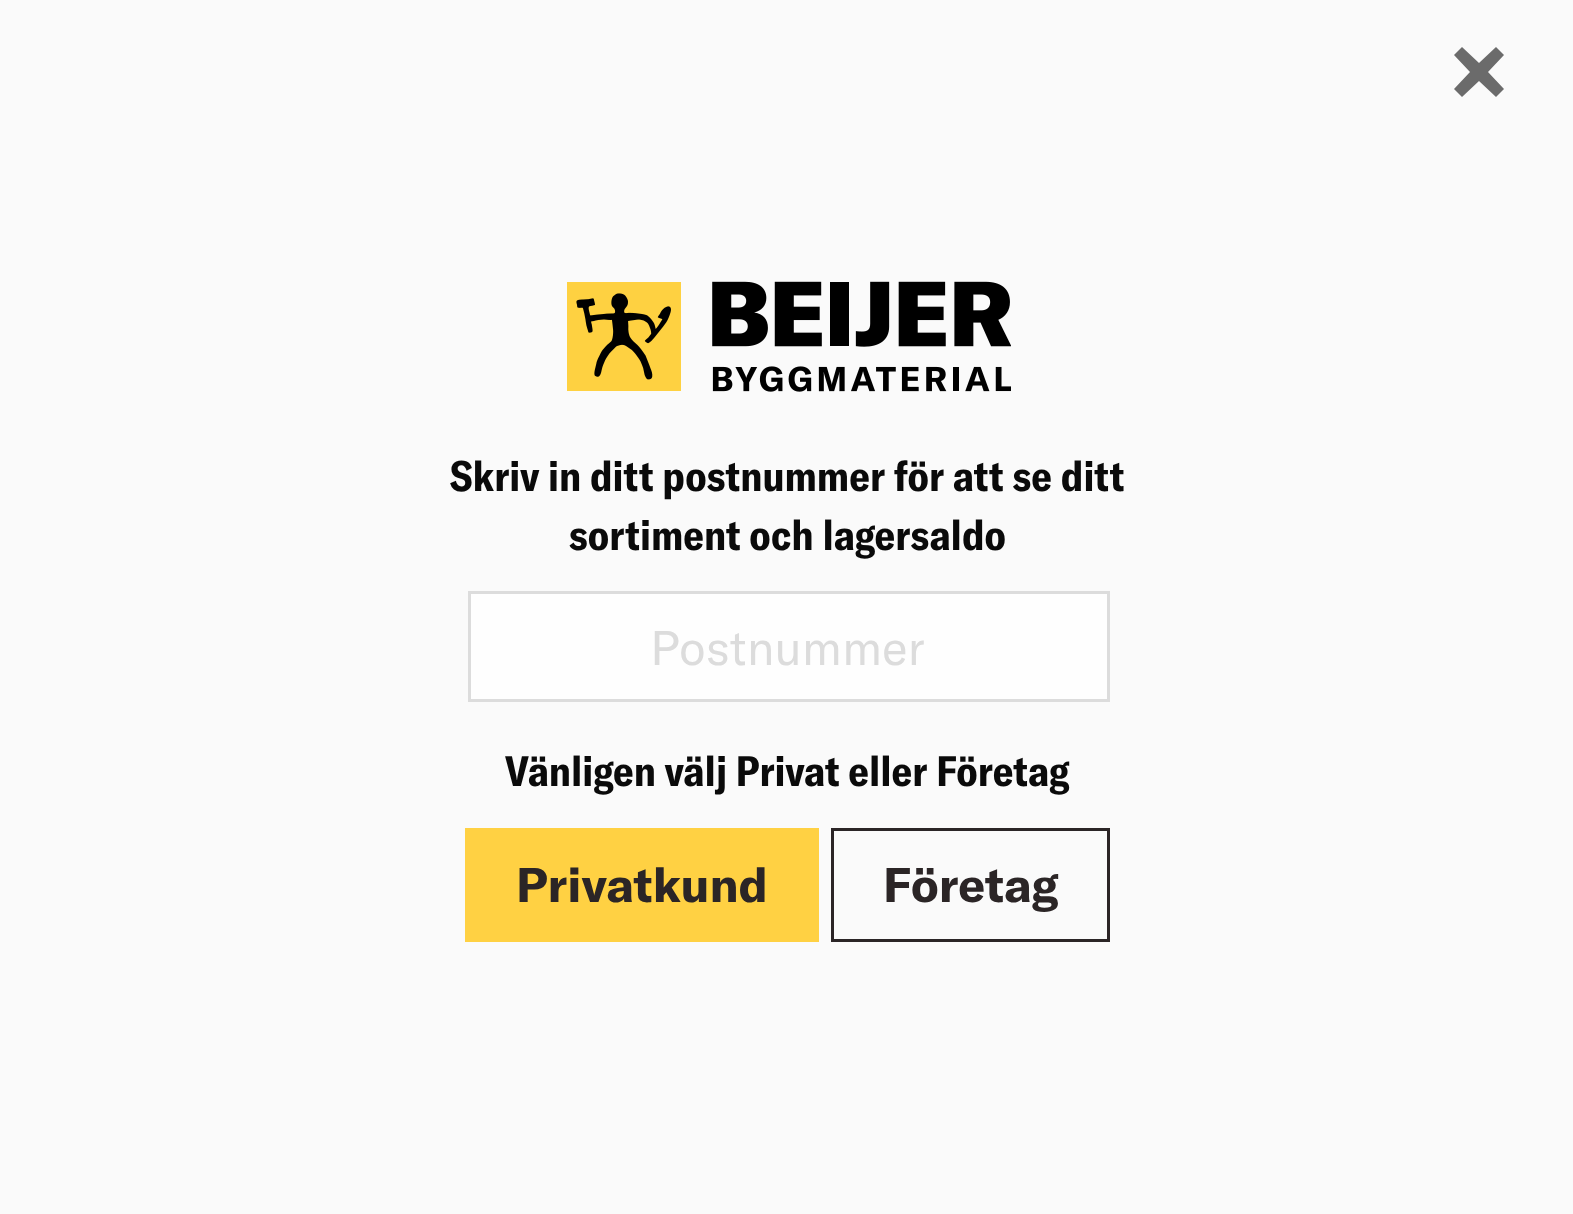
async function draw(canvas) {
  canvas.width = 1573
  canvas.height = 1214
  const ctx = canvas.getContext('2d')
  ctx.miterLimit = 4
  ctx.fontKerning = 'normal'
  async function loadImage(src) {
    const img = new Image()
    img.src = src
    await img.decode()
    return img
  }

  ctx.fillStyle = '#fafafa'
  ctx.fillRect(0, 0, 1573, 1214)
  ctx.fillStyle = '#6b6b6b'
  ctx.beginPath()
  ctx.moveTo(1504, 89)
  ctx.lineTo(1496, 97)
  ctx.lineTo(1479, 81)
  ctx.lineTo(1462, 97)
  ctx.lineTo(1454, 89)
  ctx.lineTo(1470, 72)
  ctx.lineTo(1454, 55)
  ctx.lineTo(1462, 47)
  ctx.lineTo(1479, 63)
  ctx.lineTo(1496, 47)
  ctx.lineTo(1504, 55)
  ctx.lineTo(1488, 72)
  ctx.closePath()
  ctx.fill()
  ctx.drawImage(await loadImage('image0.png'), 567, 281, 444, 111)
  ctx.font = 'bold 42px GT America'
  ctx.fillStyle = '#0a0a0a'
  ctx.fillText('Skriv in ditt postnummer för att se ditt', 450, 491)
  ctx.fillText('sortiment och lagersaldo', 569, 550)
  ctx.fillStyle = '#fefefe'
  ctx.beginPath()
  ctx.rect(469.5, 592.5, 639, 108)
  ctx.fill()
  ctx.strokeStyle = '#dcdcdc'
  ctx.lineWidth = 3
  ctx.stroke()
  ctx.font = '48px GT America'
  ctx.fillStyle = '#dcdcdc'
  ctx.fillText('Postnummer', 650, 665)
  ctx.font = 'bold 42px GT America'
  ctx.fillStyle = '#0a0a0a'
  ctx.fillText('Vänligen välj Privat eller Företag', 505, 786)
  ctx.fillStyle = '#ffd143'
  ctx.fillRect(465, 828, 354, 114)
  ctx.font = 'bold 48px "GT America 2"'
  ctx.fillStyle = '#2b2526'
  ctx.fillText('Privatkund', 516, 902)
  ctx.strokeStyle = '#2b2526'
  ctx.strokeRect(832.5, 829.5, 276, 111)
  ctx.fillText('Företag', 883, 902)
}

draw(document.querySelector('canvas'))
